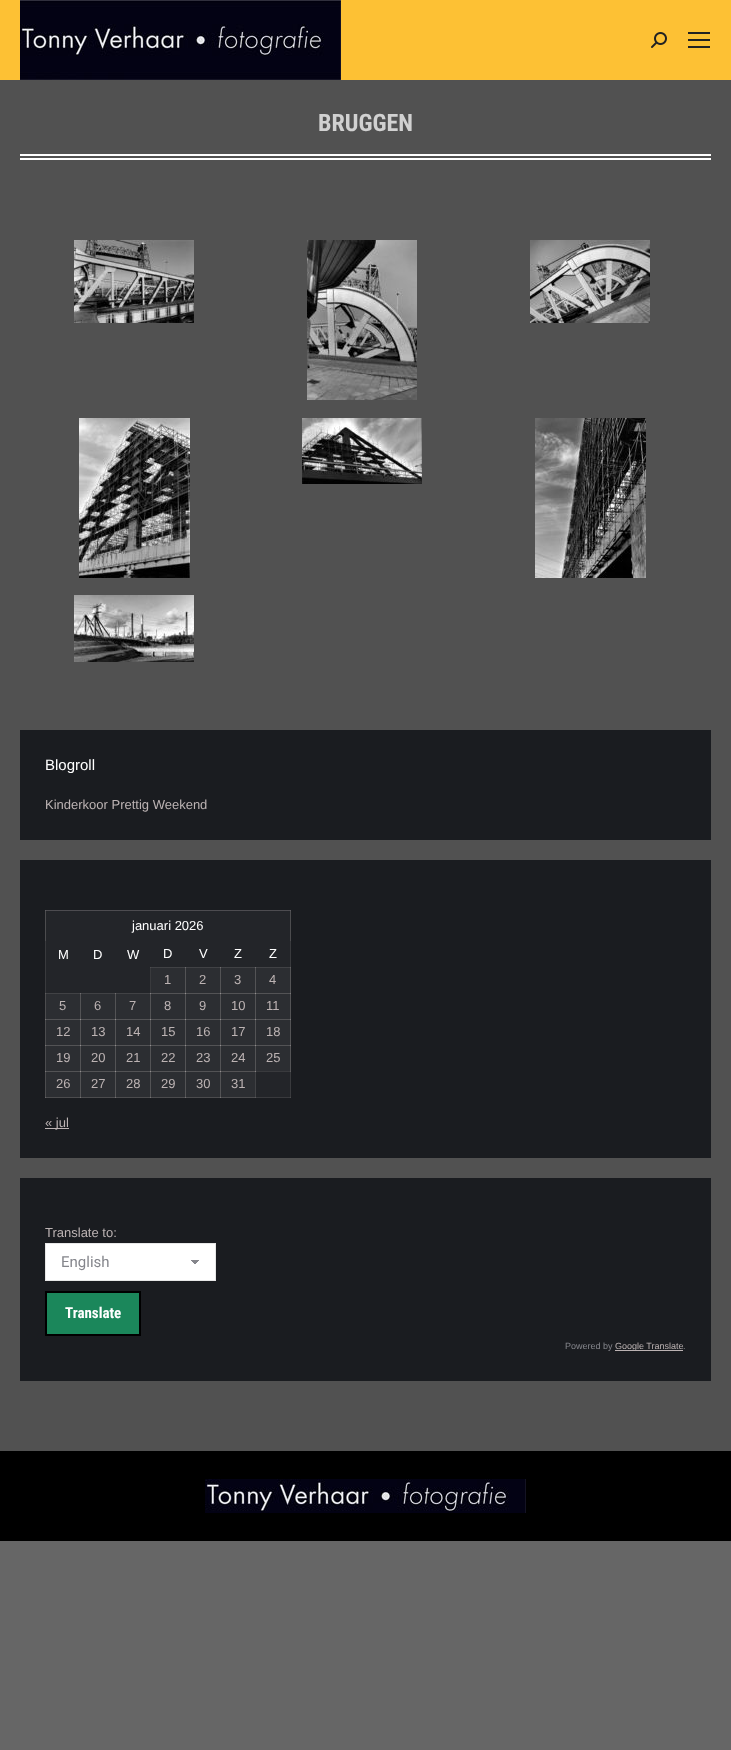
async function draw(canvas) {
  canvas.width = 731
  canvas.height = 1750
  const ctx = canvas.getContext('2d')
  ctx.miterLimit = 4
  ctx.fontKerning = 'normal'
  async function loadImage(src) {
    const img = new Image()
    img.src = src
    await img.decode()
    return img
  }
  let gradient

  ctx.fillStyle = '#666'
  ctx.fillRect(0, 0, 731, 1750)
  ctx.fillStyle = '#515151'
  ctx.fillRect(0, 80, 731, 1371)
  ctx.fillStyle = '#fdc134'
  ctx.fillRect(0, 0, 731, 80)
  ctx.drawImage(await loadImage('image0.png'), 20, 0, 321, 80)
  ctx.drawImage(await loadImage('image1.png'), 651, 32, 16, 16)
  ctx.fillStyle = '#222'
  ctx.fillRect(688, 32, 22, 2)
  ctx.fillRect(688, 39, 22, 2)
  ctx.fillRect(688, 46, 22, 2)
  ctx.font = 'bold 24px Roboto Condensed'
  ctx.fillStyle = '#d1d1d1'
  ctx.fillText('BRUGGEN', 318, 131)
  ctx.fillStyle = '#fff'
  ctx.fillRect(20, 154, 691, 2)
  ctx.fillRect(20, 158, 691, 2)
  ctx.drawImage(await loadImage('image2.png'), 74, 240, 120, 83)
  ctx.drawImage(await loadImage('image3.png'), 307, 240, 110, 160)
  ctx.drawImage(await loadImage('image4.png'), 530, 240, 120, 83)
  ctx.drawImage(await loadImage('image5.png'), 79, 418, 111, 160)
  ctx.drawImage(await loadImage('image6.png'), 302, 418, 120, 66)
  ctx.drawImage(await loadImage('image7.png'), 535, 418, 111, 160)
  ctx.drawImage(await loadImage('image8.png'), 74, 595, 120, 67)
  ctx.fillStyle = '#1a1c20'
  ctx.fillRect(20, 730, 691, 110)
  ctx.font = '15px Liberation Sans'
  ctx.fillStyle = '#fff'
  ctx.fillText('Blogroll', 45, 770)
  ctx.font = '13px Liberation Sans'
  ctx.fillStyle = '#bcb3b3'
  ctx.fillText('Kinderkoor Prettig Weekend', 45, 809)
  ctx.fillStyle = '#1a1c20'
  ctx.fillRect(20, 860, 691, 298)
  ctx.fillStyle = '#232529'
  ctx.fillRect(45, 911, 246, 187)
  ctx.fillStyle = '#bcb3b326'
  ctx.beginPath()
  ctx.moveTo(291, 910)
  ctx.lineTo(291, 941)
  ctx.lineTo(290, 941)
  ctx.lineTo(290, 911)
  ctx.closePath()
  ctx.fill()
  ctx.beginPath()
  ctx.moveTo(45, 941)
  ctx.lineTo(45, 910)
  ctx.lineTo(46, 911)
  ctx.lineTo(46, 941)
  ctx.closePath()
  ctx.fill()
  ctx.fillStyle = '#4d4c50'
  ctx.fillRect(45, 910, 246, 1)
  ctx.fillStyle = '#2c2e32'
  ctx.fillRect(151, 967, 140, 26)
  ctx.fillRect(46, 993, 245, 26)
  ctx.fillRect(46, 1019, 245, 26)
  ctx.fillRect(46, 1045, 245, 26)
  ctx.fillStyle = '#bcb3b326'
  ctx.fillRect(290, 910, 1, 188)
  ctx.fillRect(45, 1097, 246, 1)
  ctx.fillRect(45, 910, 1, 188)
  ctx.fillStyle = '#fff'
  ctx.fillText('januari 2026', 132, 930)
  ctx.fillText('M', 58, 959)
  ctx.fillText('D', 93, 959)
  ctx.fillText('W', 127, 959)
  ctx.fillText('D', 163, 958)
  ctx.fillText('V', 199, 958)
  ctx.fillText('Z', 234, 958)
  ctx.fillText('Z', 269, 958)
  ctx.fillStyle = '#bcb3b326'
  ctx.fillRect(255, 967, 36, 1)
  ctx.fillRect(255, 993, 36, 1)
  ctx.fillRect(255, 1019, 36, 1)
  ctx.fillRect(255, 1045, 36, 1)
  ctx.fillRect(290, 1045, 1, 27)
  ctx.fillRect(290, 1019, 1, 27)
  ctx.fillRect(290, 993, 1, 27)
  ctx.fillRect(290, 967, 1, 27)
  ctx.fillStyle = '#2c2e32'
  ctx.fillRect(46, 1071, 175, 26)
  ctx.fillStyle = '#424245'
  ctx.fillRect(220, 1071, 36, 1)
  ctx.fillStyle = '#2c2e32'
  ctx.fillRect(221, 1072, 35, 25)
  ctx.fillStyle = '#bcb3b326'
  ctx.fillRect(255, 1071, 1, 27)
  ctx.fillRect(255, 1071, 36, 1)
  ctx.fillRect(255, 1045, 1, 27)
  ctx.fillRect(220, 1045, 36, 1)
  ctx.fillRect(255, 1045, 1, 27)
  ctx.fillRect(255, 1045, 36, 1)
  ctx.fillRect(255, 1019, 1, 27)
  ctx.fillRect(220, 1019, 36, 1)
  ctx.fillRect(255, 1019, 1, 27)
  ctx.fillRect(255, 1019, 36, 1)
  ctx.fillRect(255, 993, 1, 27)
  ctx.fillRect(220, 993, 36, 1)
  ctx.fillRect(255, 993, 1, 27)
  ctx.fillRect(255, 993, 36, 1)
  ctx.fillRect(255, 967, 1, 27)
  ctx.fillRect(220, 967, 36, 1)
  ctx.fillRect(255, 967, 1, 27)
  ctx.fillRect(220, 1097, 36, 1)
  ctx.fillRect(220, 1071, 1, 27)
  ctx.fillRect(185, 1071, 36, 1)
  ctx.fillRect(220, 1071, 1, 27)
  ctx.fillRect(220, 1071, 36, 1)
  ctx.fillRect(220, 1045, 1, 27)
  ctx.fillRect(185, 1045, 36, 1)
  ctx.fillRect(220, 1045, 1, 27)
  ctx.fillRect(220, 1045, 36, 1)
  ctx.fillRect(220, 1019, 1, 27)
  ctx.fillRect(185, 1019, 36, 1)
  ctx.fillRect(220, 1019, 1, 27)
  ctx.fillRect(220, 1019, 36, 1)
  ctx.fillRect(220, 993, 1, 27)
  ctx.fillRect(185, 993, 36, 1)
  ctx.fillRect(220, 993, 1, 27)
  ctx.fillRect(220, 993, 36, 1)
  ctx.fillRect(220, 967, 1, 27)
  ctx.fillRect(185, 967, 36, 1)
  ctx.fillRect(220, 967, 1, 27)
  ctx.fillRect(185, 1097, 36, 1)
  ctx.fillRect(185, 1071, 1, 27)
  ctx.fillRect(150, 1071, 36, 1)
  ctx.fillRect(185, 1071, 1, 27)
  ctx.fillRect(185, 1071, 36, 1)
  ctx.fillRect(185, 1045, 1, 27)
  ctx.fillRect(150, 1045, 36, 1)
  ctx.fillRect(185, 1045, 1, 27)
  ctx.fillRect(185, 1045, 36, 1)
  ctx.fillRect(185, 1019, 1, 27)
  ctx.fillRect(150, 1019, 36, 1)
  ctx.fillRect(185, 1019, 1, 27)
  ctx.fillRect(185, 1019, 36, 1)
  ctx.fillRect(185, 993, 1, 27)
  ctx.fillRect(150, 993, 36, 1)
  ctx.fillRect(185, 993, 1, 27)
  ctx.fillRect(185, 993, 36, 1)
  ctx.fillRect(185, 967, 1, 27)
  ctx.fillRect(150, 967, 36, 1)
  ctx.fillRect(185, 967, 1, 27)
  ctx.fillRect(150, 1097, 36, 1)
  ctx.fillRect(150, 1071, 1, 27)
  ctx.fillRect(115, 1071, 36, 1)
  ctx.fillRect(150, 1071, 1, 27)
  ctx.fillRect(150, 1071, 36, 1)
  ctx.fillRect(150, 1045, 1, 27)
  ctx.fillRect(115, 1045, 36, 1)
  ctx.fillRect(150, 1045, 1, 27)
  ctx.fillRect(150, 1045, 36, 1)
  ctx.fillRect(150, 1019, 1, 27)
  ctx.fillRect(115, 1019, 36, 1)
  ctx.fillRect(150, 1019, 1, 27)
  ctx.fillRect(150, 1019, 36, 1)
  ctx.fillRect(150, 993, 1, 27)
  ctx.fillRect(115, 993, 36, 1)
  ctx.fillRect(150, 993, 1, 27)
  ctx.fillRect(150, 993, 36, 1)
  ctx.fillRect(150, 967, 1, 27)
  ctx.fillStyle = '#bcb3b3'
  ctx.fillText('1', 164, 984)
  ctx.fillText('2', 199, 984)
  ctx.fillText('3', 234, 984)
  ctx.fillText('4', 269, 984)
  ctx.fillStyle = '#bcb3b326'
  ctx.fillRect(115, 1097, 36, 1)
  ctx.fillRect(115, 1071, 1, 27)
  ctx.fillRect(80, 1071, 36, 1)
  ctx.fillRect(115, 1071, 1, 27)
  ctx.fillRect(115, 1071, 36, 1)
  ctx.fillRect(115, 1045, 1, 27)
  ctx.fillRect(80, 1045, 36, 1)
  ctx.fillRect(115, 1045, 1, 27)
  ctx.fillRect(115, 1045, 36, 1)
  ctx.fillRect(115, 1019, 1, 27)
  ctx.fillRect(80, 1019, 36, 1)
  ctx.fillRect(115, 1019, 1, 27)
  ctx.fillRect(115, 1019, 36, 1)
  ctx.fillRect(115, 993, 1, 27)
  ctx.fillRect(80, 993, 36, 1)
  ctx.fillRect(115, 993, 1, 27)
  ctx.fillRect(80, 1097, 36, 1)
  ctx.fillRect(80, 1071, 1, 27)
  ctx.fillRect(45, 1071, 36, 1)
  ctx.fillRect(80, 1071, 1, 27)
  ctx.fillRect(80, 1071, 36, 1)
  ctx.fillRect(80, 1045, 1, 27)
  ctx.fillRect(45, 1045, 36, 1)
  ctx.fillRect(80, 1045, 1, 27)
  ctx.fillRect(80, 1045, 36, 1)
  ctx.fillRect(80, 1019, 1, 27)
  ctx.fillRect(45, 1019, 36, 1)
  ctx.fillRect(80, 1019, 1, 27)
  ctx.fillRect(80, 1019, 36, 1)
  ctx.fillRect(80, 993, 1, 27)
  ctx.fillRect(45, 993, 36, 1)
  ctx.fillRect(80, 993, 1, 27)
  ctx.fillRect(45, 1097, 36, 1)
  ctx.fillRect(45, 1071, 1, 27)
  ctx.fillRect(45, 1071, 36, 1)
  ctx.fillRect(45, 1045, 1, 27)
  ctx.fillRect(45, 1045, 36, 1)
  ctx.fillRect(45, 1019, 1, 27)
  ctx.fillRect(45, 1019, 36, 1)
  ctx.fillRect(45, 993, 1, 27)
  ctx.fillStyle = '#bcb3b3'
  ctx.fillText('5', 59, 1010)
  ctx.fillText('6', 94, 1010)
  ctx.fillText('7', 129, 1010)
  ctx.fillText('8', 164, 1010)
  ctx.fillText('9', 199, 1010)
  ctx.fillText('10', 231, 1010)
  ctx.fillText('11', 266, 1010)
  ctx.fillText('12', 56, 1036)
  ctx.fillText('13', 91, 1036)
  ctx.fillText('14', 126, 1036)
  ctx.fillText('15', 161, 1036)
  ctx.fillText('16', 196, 1036)
  ctx.fillText('17', 231, 1036)
  ctx.fillText('18', 266, 1036)
  ctx.fillText('19', 56, 1062)
  ctx.fillText('20', 91, 1062)
  ctx.fillText('21', 126, 1062)
  ctx.fillText('22', 161, 1062)
  ctx.fillText('23', 196, 1062)
  ctx.fillText('24', 231, 1062)
  ctx.fillText('25', 266, 1062)
  ctx.fillText('26', 56, 1088)
  ctx.fillText('27', 91, 1088)
  ctx.fillText('28', 126, 1088)
  ctx.fillText('29', 161, 1088)
  ctx.fillText('30', 196, 1088)
  ctx.fillText('31', 231, 1088)
  ctx.fillRect(45, 1128, 24, 1)
  ctx.fillText('« jul', 45, 1127)
  ctx.fillStyle = '#1a1c20'
  ctx.fillRect(20, 1178, 691, 203)
  ctx.fillStyle = '#bcb3b3'
  ctx.fillText('Translate to:', 45, 1237)
  ctx.fillStyle = '#fff'
  ctx.fillRect(46, 1244, 169, 36)
  gradient = ctx.createLinearGradient(195, 1260, 200, 1265)
  gradient.addColorStop(0.5, '#85868c')
  gradient.addColorStop(0.5, '#fff')
  ctx.fillStyle = gradient
  ctx.fillRect(195, 1260, 5, 4)
  gradient = ctx.createLinearGradient(190, 1265, 195, 1260)
  gradient.addColorStop(0.5, '#fff')
  gradient.addColorStop(0.5, '#85868c')
  ctx.fillStyle = gradient
  ctx.fillRect(190, 1260, 5, 4)
  ctx.strokeStyle = '#e7e7e7'
  ctx.strokeRect(45.5, 1243.5, 170, 37)
  ctx.font = '15px Roboto'
  ctx.fillStyle = '#85868c'
  ctx.fillText('English', 61, 1267)
  ctx.fillStyle = '#1b875b'
  ctx.beginPath()
  ctx.rect(46, 1292, 94, 43)
  ctx.fill()
  ctx.strokeStyle = '#000'
  ctx.lineWidth = 2
  ctx.stroke()
  ctx.font = 'bold 15px Roboto Condensed'
  ctx.fillStyle = '#fff'
  ctx.fillText('Translate', 65, 1318)
  ctx.font = '9px Liberation Sans'
  ctx.fillStyle = '#85868c'
  ctx.fillText('Powered by', 565, 1349)
  ctx.fillStyle = '#bcb3b3'
  ctx.fillRect(615, 1350, 68, 1)
  ctx.fillText('Google Translate', 615, 1349)
  ctx.fillStyle = '#85868c'
  ctx.fillText('.', 683, 1349)
  ctx.fillStyle = '#000'
  ctx.fillRect(0, 1451, 731, 90)
  ctx.drawImage(await loadImage('image9.png'), 205, 1479, 321, 34)
}

draw(document.querySelector('canvas'))
